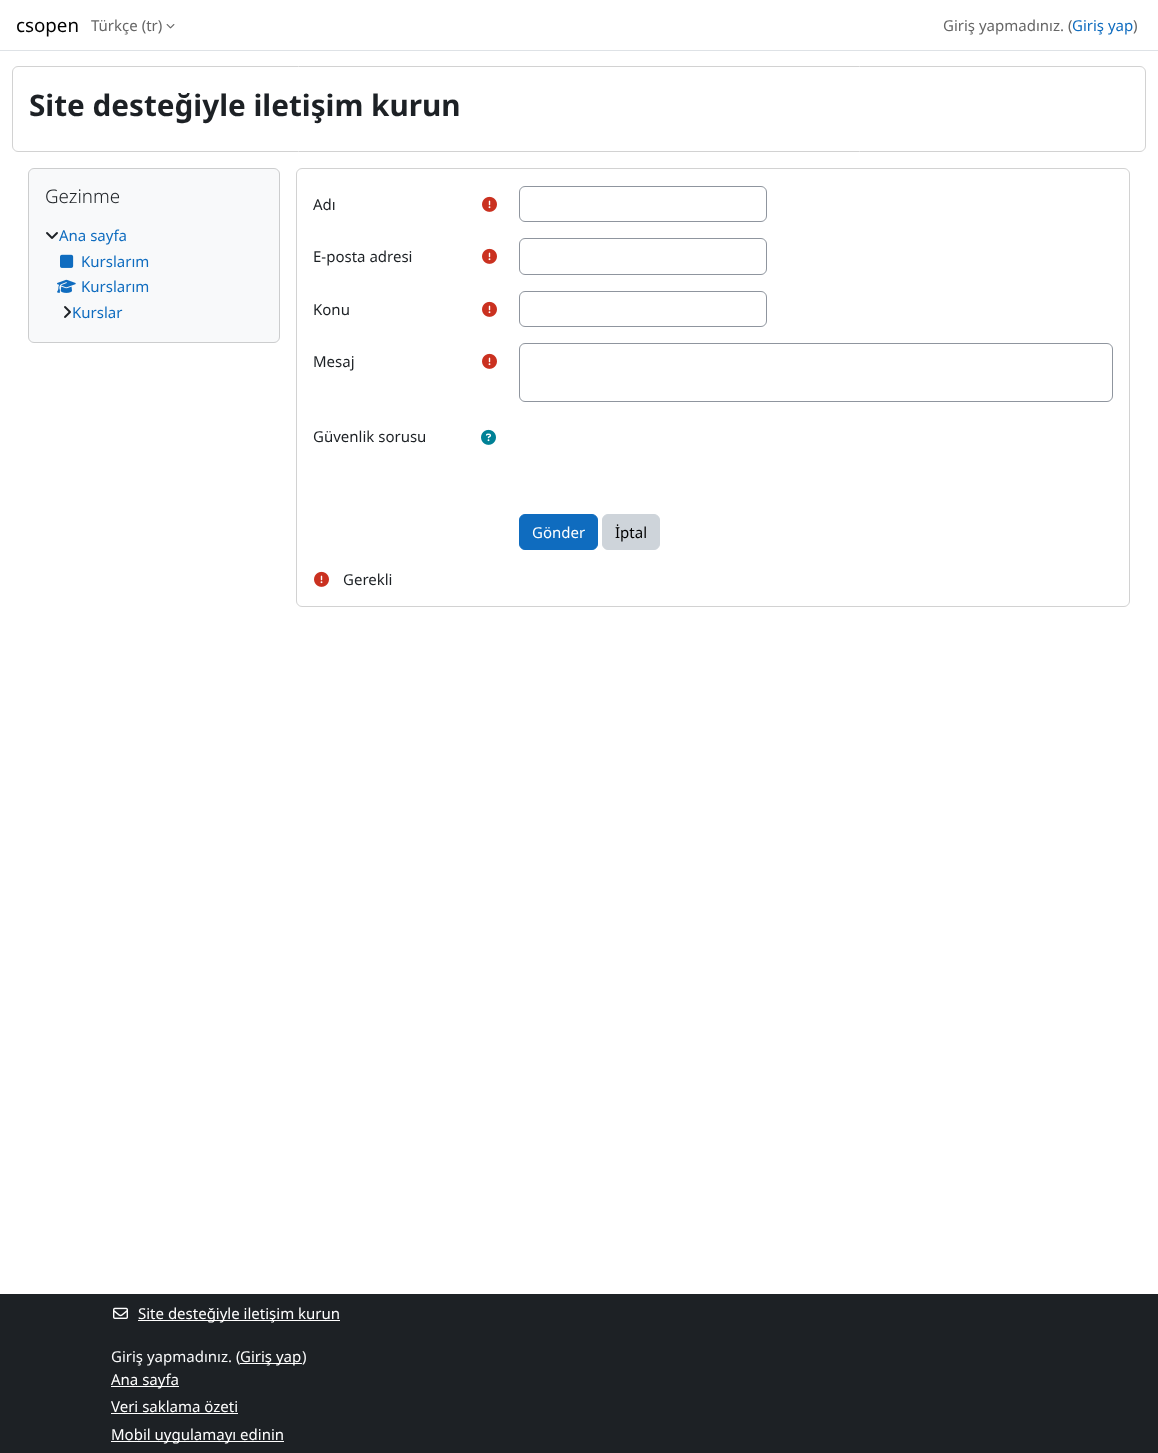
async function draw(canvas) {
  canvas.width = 1158
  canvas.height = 1453
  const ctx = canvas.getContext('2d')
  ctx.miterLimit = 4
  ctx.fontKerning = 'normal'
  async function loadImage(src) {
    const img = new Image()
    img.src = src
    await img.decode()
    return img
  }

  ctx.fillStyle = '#fff'
  ctx.fillRect(0, 0, 1158, 1453)
  ctx.fillStyle = '#dee2e6'
  ctx.fillRect(0, 50, 1158, 1)
  ctx.font = '18.75px Noto Sans'
  ctx.fillStyle = '#000'
  ctx.fillText('csopen', 16, 32)
  ctx.font = '15px Noto Sans'
  ctx.fillStyle = '#666'
  ctx.fillText('Türkçe (tr)', 91, 31)
  ctx.drawImage(await loadImage('image0.png'), 166, 24, 9, 5)
  ctx.fillText('Giriş yapmadınız. (', 943, 31)
  ctx.fillStyle = '#0f6cbf'
  ctx.fillText('Giriş yap', 1072, 31)
  ctx.fillStyle = '#666'
  ctx.fillText(')', 1133, 31)
  ctx.beginPath()
  ctx.roundRect(12.5, 66.5, 1133, 85, 5.5)
  ctx.strokeStyle = '#d2d2d2'
  ctx.stroke()
  ctx.font = 'bold 29.7px Noto Sans'
  ctx.fillStyle = '#1d2125'
  ctx.fillText('Site desteğiyle iletişim kurun', 29, 116)
  ctx.fillStyle = '#f8f9fa'
  ctx.beginPath()
  ctx.roundRect(28.5, 168.5, 251, 174, 5.5)
  ctx.fill()
  ctx.strokeStyle = '#cccdce'
  ctx.stroke()
  ctx.font = '300 18.75px Noto Sans'
  ctx.fillStyle = '#1d2125'
  ctx.fillText('Gezinme', 45, 203)
  ctx.drawImage(await loadImage('image1.png'), 46, 232, 12, 7)
  ctx.font = '15px Noto Sans'
  ctx.fillStyle = '#0f6cbf'
  ctx.fillText('Ana sayfa', 59, 241)
  ctx.drawImage(await loadImage('image2.png'), 60, 254, 14, 14)
  ctx.fillText('Kurslarım', 81, 267)
  ctx.drawImage(await loadImage('image3.png'), 57, 279, 19, 14)
  ctx.fillText('Kurslarım', 81, 292)
  ctx.drawImage(await loadImage('image4.png'), 64, 306, 7, 12)
  ctx.fillText('Kurslar', 72, 318)
  ctx.beginPath()
  ctx.roundRect(296.5, 168.5, 833, 438, 5.5)
  ctx.strokeStyle = '#d2d2d2'
  ctx.stroke()
  ctx.fillStyle = '#1d2125'
  ctx.fillText('Adı', 313, 210)
  ctx.drawImage(await loadImage('image5.png'), 482, 196, 15, 16)
  ctx.beginPath()
  ctx.roundRect(519.5, 186.5, 247, 35, 5.5)
  ctx.strokeStyle = '#8f959e'
  ctx.stroke()
  ctx.fillText('E-posta adresi', 313, 262)
  ctx.drawImage(await loadImage('image5.png'), 482, 248, 15, 16)
  ctx.beginPath()
  ctx.roundRect(519.5, 238.5, 247, 36, 5.5)
  ctx.stroke()
  ctx.fillText('Konu', 313, 315)
  ctx.drawImage(await loadImage('image5.png'), 482, 301, 15, 16)
  ctx.beginPath()
  ctx.roundRect(519.5, 291.5, 247, 35, 5.5)
  ctx.stroke()
  ctx.fillText('Mesaj', 313, 367)
  ctx.drawImage(await loadImage('image5.png'), 482, 353, 15, 16)
  ctx.beginPath()
  ctx.roundRect(519.5, 343.5, 593, 58, 5.5)
  ctx.stroke()
  ctx.fillText('Güvenlik sorusu', 313, 442)
  ctx.drawImage(await loadImage('image6.png'), 481, 429, 15, 16)
  ctx.fillStyle = '#0f6cbf'
  ctx.beginPath()
  ctx.roundRect(519.5, 514.5, 78, 35, 5.5)
  ctx.fill()
  ctx.strokeStyle = '#0f6cbf'
  ctx.stroke()
  ctx.fillStyle = '#fff'
  ctx.fillText('Gönder', 532, 538)
  ctx.fillStyle = '#ced4da'
  ctx.beginPath()
  ctx.roundRect(602.5, 514.5, 57, 35, 5.5)
  ctx.fill()
  ctx.strokeStyle = '#ced4da'
  ctx.stroke()
  ctx.fillStyle = '#000'
  ctx.fillText('İptal', 615, 538)
  ctx.drawImage(await loadImage('image5.png'), 314, 571, 15, 16)
  ctx.fillStyle = '#1d2125'
  ctx.fillText('Gerekli', 343, 585)
  ctx.fillRect(0, 1294, 1158, 159)
  ctx.drawImage(await loadImage('image7.png'), 113, 1307, 15, 12)
  ctx.fillStyle = '#fff'
  ctx.fillRect(138, 1320, 202, 1)
  ctx.fillText('Site desteğiyle iletişim kurun', 138, 1319)
  ctx.fillStyle = '#f8f9fa'
  ctx.fillText('Giriş yapmadınız. (', 111, 1362)
  ctx.fillStyle = '#fff'
  ctx.fillRect(240, 1363, 62, 1)
  ctx.fillText('Giriş yap', 240, 1362)
  ctx.fillStyle = '#f8f9fa'
  ctx.fillText(')', 302, 1362)
  ctx.fillStyle = '#fff'
  ctx.fillRect(111, 1386, 68, 1)
  ctx.fillText('Ana sayfa', 111, 1385)
  ctx.fillText('Veri saklama özeti', 111, 1412)
  ctx.fillRect(111, 1413, 127, 1)
  ctx.fillRect(111, 1441, 173, 1)
  ctx.fillText('Mobil uygulamayı edinin', 111, 1440)
}

draw(document.querySelector('canvas'))
